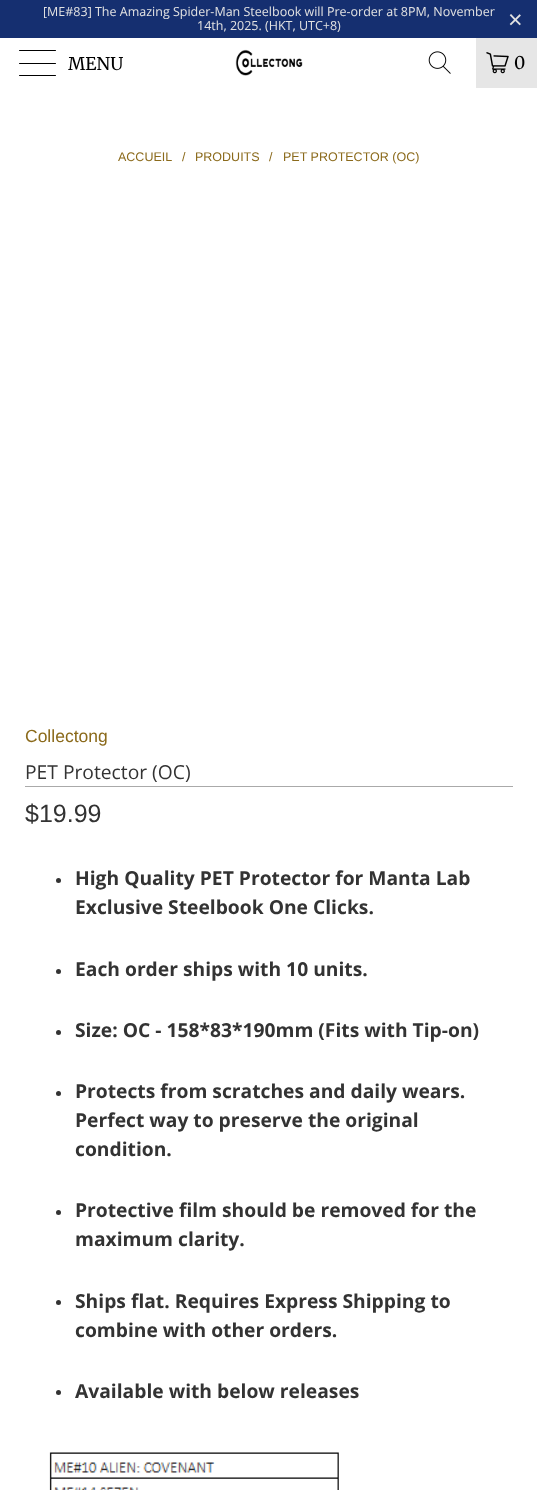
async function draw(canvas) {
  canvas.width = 537
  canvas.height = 1490
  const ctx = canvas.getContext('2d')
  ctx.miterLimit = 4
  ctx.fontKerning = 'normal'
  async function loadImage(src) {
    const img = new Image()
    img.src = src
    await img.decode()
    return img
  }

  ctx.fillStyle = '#fff'
  ctx.fillRect(0, 0, 537, 1490)
  ctx.fillStyle = '#152f70'
  ctx.fillRect(0, 0, 537, 38)
  ctx.font = '12.5px Open Sans'
  ctx.fillStyle = '#e2e2e2'
  ctx.fillText('[ME#83] The Amazing Spider-Man Steelbook will Pre-order at 8PM, November', 43, 16)
  ctx.fillText('14th, 2025. (HKT, UTC+8)', 197, 30)
  ctx.font = '25px Liberation Sans'
  ctx.fillText('×', 508, 28)
  ctx.fillStyle = '#000'
  ctx.beginPath()
  ctx.roundRect(19, 50, 37, 1, 0.5)
  ctx.fill()
  ctx.beginPath()
  ctx.roundRect(19, 63, 37, 1, 0.5)
  ctx.fill()
  ctx.beginPath()
  ctx.roundRect(19, 75, 37, 1, 0.5)
  ctx.fill()
  ctx.font = '17.5px Merriweather'
  ctx.fillText('MENU', 68, 70)
  ctx.drawImage(await loadImage('image0.png'), 235, 49, 68, 27)
  ctx.drawImage(await loadImage('image1.png'), 428, 51, 23, 23)
  ctx.fillStyle = '#e6e6e6'
  ctx.fillRect(476, 38, 61, 50)
  ctx.drawImage(await loadImage('image2.png'), 486, 52, 23, 22)
  ctx.fillStyle = '#000'
  ctx.fillText('0', 514, 69)
  ctx.font = '12.5px Liberation Sans'
  ctx.fillStyle = '#8b6a1b'
  ctx.fillText('ACCUEIL', 118, 161)
  ctx.fillText('/', 182, 161)
  ctx.fillText('PRODUITS', 195, 161)
  ctx.fillText('/', 269, 161)
  ctx.fillText('PET PROTECTOR (OC)', 283, 161)
  ctx.font = '17.5px Liberation Sans'
  ctx.fillText('Collectong', 25, 742)
  ctx.font = '19.25px Open Sans'
  ctx.fillStyle = '#333'
  ctx.fillText('PET Protector (OC)', 25, 779)
  ctx.fillStyle = '#aaa'
  ctx.fillRect(25, 786, 488, 1)
  ctx.font = '25px Liberation Sans'
  ctx.fillStyle = '#333'
  ctx.fillText('$19.99', 25, 822)
  ctx.beginPath()
  ctx.arc(58.5, 880.5, 2.5, 0, 2 * Math.PI)
  ctx.fill()
  ctx.font = 'bold 19.25px Open Sans'
  ctx.fillText('High Quality PET Protector for Manta Lab', 75, 885)
  ctx.fillText('Exclusive Steelbook One Clicks.', 75, 914)
  ctx.beginPath()
  ctx.arc(58.5, 971.5, 2.5, 0, 2 * Math.PI)
  ctx.fill()
  ctx.fillText('Each order ships with 10 units.', 75, 976)
  ctx.beginPath()
  ctx.arc(58.5, 1032.5, 2.5, 0, 2 * Math.PI)
  ctx.fill()
  ctx.fillText('Size: OC - 158*83*190mm (Fits with Tip-on)', 75, 1037)
  ctx.beginPath()
  ctx.arc(58.5, 1093.5, 2.5, 0, 2 * Math.PI)
  ctx.fill()
  ctx.fillText('Protects from scratches and daily wears.', 75, 1098)
  ctx.fillText('Perfect way to preserve the original', 75, 1127)
  ctx.fillText('condition.', 75, 1156)
  ctx.beginPath()
  ctx.arc(58.5, 1212.5, 2.5, 0, 2 * Math.PI)
  ctx.fill()
  ctx.fillText('Protective film should be removed for the', 75, 1217)
  ctx.fillText('maximum clarity.', 75, 1246)
  ctx.beginPath()
  ctx.arc(58.5, 1302.5, 2.5, 0, 2 * Math.PI)
  ctx.fill()
  ctx.fillText('Ships flat. Requires Express Shipping to', 75, 1308)
  ctx.fillText('combine with other orders.', 75, 1337)
  ctx.beginPath()
  ctx.arc(58.5, 1392.5, 2.5, 0, 2 * Math.PI)
  ctx.fill()
  ctx.fillText('Available with below releases', 75, 1398)
  ctx.drawImage(await loadImage('image3.png'), 49, 1452, 290, 38)
}

draw(document.querySelector('canvas'))
